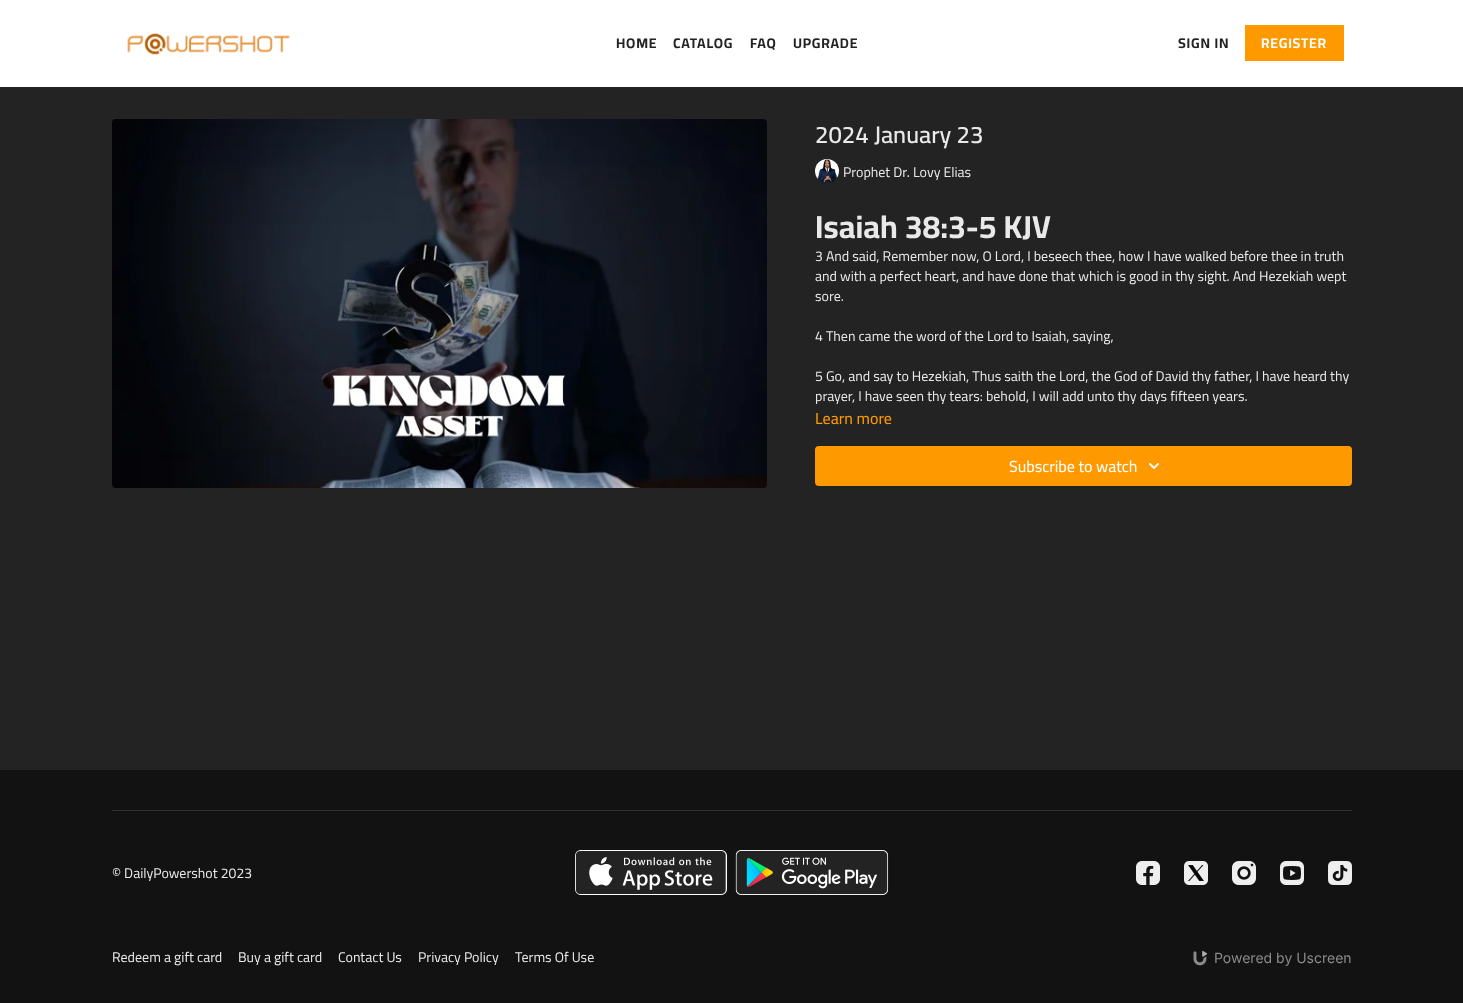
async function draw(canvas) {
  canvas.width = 1463
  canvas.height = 1003
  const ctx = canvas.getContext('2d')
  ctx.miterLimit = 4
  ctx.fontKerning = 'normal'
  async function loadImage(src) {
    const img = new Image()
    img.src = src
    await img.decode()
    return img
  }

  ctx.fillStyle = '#232323'
  ctx.fillRect(0, 0, 1463, 1003)
  ctx.fillStyle = '#fff'
  ctx.fillRect(0, 0, 1463, 87)
  ctx.drawImage(await loadImage('image0.png'), 127, 33, 163, 22)
  ctx.letterSpacing = '0.75px'
  ctx.font = 'bold 14px Cairo'
  ctx.fillStyle = '#232323'
  ctx.fillText('HOME', 616, 48)
  ctx.fillText('CATALOG', 673, 48)
  ctx.fillText('FAQ', 750, 48)
  ctx.fillText('UPGRADE', 793, 48)
  ctx.fillText('SIGN IN', 1178, 48)
  ctx.fillStyle = '#f90'
  ctx.fillRect(1245, 25, 99, 36)
  ctx.fillStyle = '#fff'
  ctx.fillText('REGISTER', 1261, 48)
  ctx.drawImage(await loadImage('image1.png'), 112, 119, 655, 369)
  ctx.letterSpacing = '0px'
  ctx.font = '600 24px Cairo'
  ctx.fillStyle = '#e9e9e9'
  ctx.fillText('2024 January 23', 815, 143)
  ctx.drawImage(await loadImage('image2.png'), 815, 159, 24, 24)
  ctx.font = '14px Cairo'
  ctx.fillText('Prophet Dr. Lovy Elias', 843, 177)
  ctx.font = 'bold 32px Cairo'
  ctx.fillText('Isaiah 38:3-5 KJV', 815, 238)
  ctx.font = '14px Cairo'
  ctx.fillText('3 And said, Remember now, O Lord, I beseech thee, how I have walked before thee in truth', 815, 261)
  ctx.fillText('and with a perfect heart, and have done that which is good in thy sight. And Hezekiah wept', 815, 281)
  ctx.fillText('sore.', 815, 301)
  ctx.fillText('4 Then came the word of the Lord to Isaiah, saying,', 815, 341)
  ctx.fillText('5 Go, and say to Hezekiah, Thus saith the Lord, the God of David thy father, I have heard thy', 815, 381)
  ctx.fillText('prayer, I have seen thy tears: behold, I will add unto thy days fifteen years.', 815, 401)
  ctx.font = '500 16px Cairo'
  ctx.fillStyle = '#f90'
  ctx.fillText('Learn more', 815, 424)
  ctx.beginPath()
  ctx.roundRect(815, 446, 537, 40, 4)
  ctx.fill()
  ctx.fillStyle = '#fff'
  ctx.fillText('Subscribe to watch', 1009, 472)
  ctx.drawImage(await loadImage('image3.png'), 1149, 463, 10, 6)
  ctx.fillStyle = '#121212'
  ctx.fillRect(0, 770, 1463, 233)
  ctx.fillStyle = '#323232'
  ctx.fillRect(112, 810, 1240, 1)
  ctx.font = '14px Cairo'
  ctx.fillStyle = '#e9e9e9'
  ctx.fillText('© DailyPowershot 2023', 112, 878)
  ctx.drawImage(await loadImage('image4.png'), 575, 850, 152, 45)
  ctx.drawImage(await loadImage('image5.png'), 735, 850, 154, 45)
  ctx.drawImage(await loadImage('image6.png'), 1136, 861, 24, 24)
  ctx.drawImage(await loadImage('image7.png'), 1184, 861, 24, 24)
  ctx.drawImage(await loadImage('image8.png'), 1232, 861, 24, 24)
  ctx.drawImage(await loadImage('image9.png'), 1280, 861, 24, 24)
  ctx.drawImage(await loadImage('image10.png'), 1328, 861, 24, 24)
  ctx.fillText('Redeem a gift card', 112, 962)
  ctx.fillText('Buy a gift card', 238, 962)
  ctx.fillText('Contact Us', 338, 962)
  ctx.fillText('Privacy Policy', 418, 962)
  ctx.fillText('Terms Of Use', 515, 962)
  ctx.drawImage(await loadImage('image11.png'), 1193, 950, 15, 16)
  ctx.font = '14px Inter'
  ctx.fillStyle = '#8a8a8a'
  ctx.fillText('Powered by Uscreen', 1214, 963)
}

draw(document.querySelector('canvas'))
